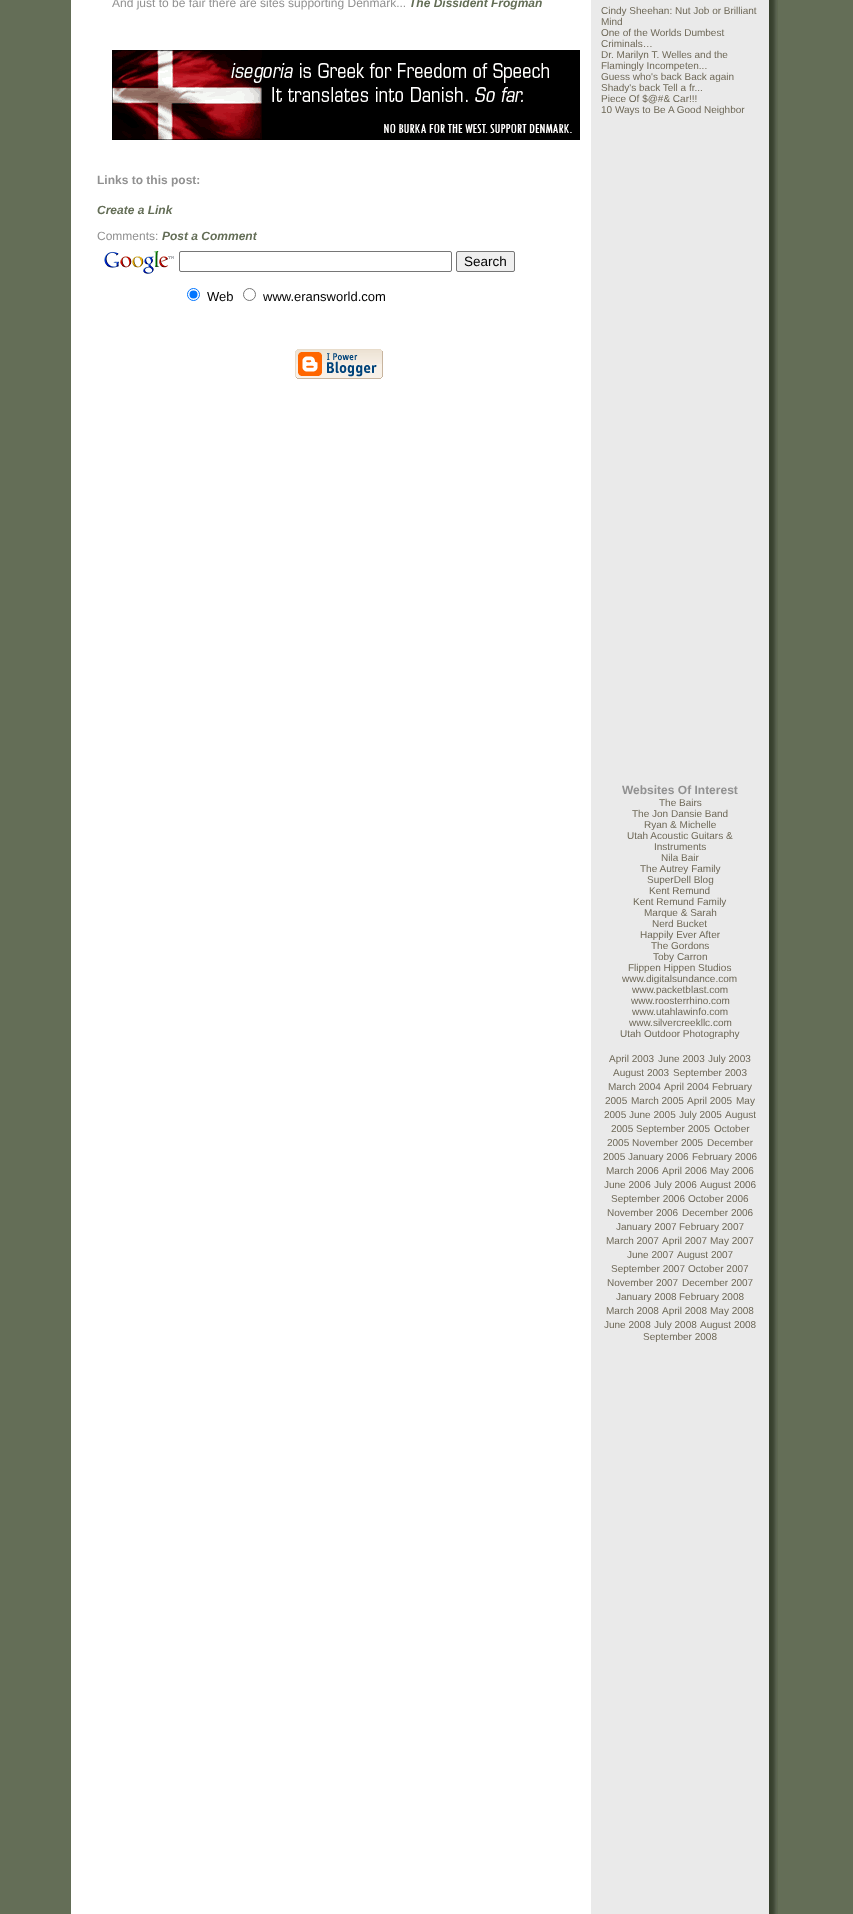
async function draw(canvas) {
  canvas.width = 853
  canvas.height = 1914
  const ctx = canvas.getContext('2d')
  ctx.miterLimit = 4
  ctx.fontKerning = 'normal'
  async function loadImage(src) {
    const img = new Image()
    img.src = src
    await img.decode()
    return img
  }

  ctx.fillStyle = '#646e57'
  ctx.fillRect(0, 0, 853, 1914)
  ctx.fillStyle = '#fff'
  ctx.fillRect(71, 0, 520, 1914)
  ctx.font = '12px Liberation Sans'
  ctx.fillStyle = '#919191'
  ctx.fillText('And just to be fair there are sites supporting Denmark...', 112, 7)
  ctx.font = 'italic bold 12px Liberation Sans'
  ctx.fillStyle = '#646e57'
  ctx.fillText('The Dissident Frogman', 409, 7)
  ctx.drawImage(await loadImage('image0.png'), 112, 50, 468, 90)
  ctx.font = 'bold 12px Liberation Sans'
  ctx.fillStyle = '#919191'
  ctx.fillText('Links to this post:', 97, 184)
  ctx.font = 'italic bold 12px Liberation Sans'
  ctx.fillStyle = '#646e57'
  ctx.fillText('Create a Link', 97, 214)
  ctx.font = '12px Liberation Sans'
  ctx.fillStyle = '#919191'
  ctx.fillText('Comments:', 97, 240)
  ctx.font = 'italic bold 12px Liberation Sans'
  ctx.fillStyle = '#646e57'
  ctx.fillText('Post a Comment', 162, 240)
  ctx.drawImage(await loadImage('image1.png'), 104, 251, 70, 23)
  ctx.beginPath()
  ctx.roundRect(179.5, 251.5, 272, 20, 1.5)
  ctx.strokeStyle = '#767676'
  ctx.stroke()
  ctx.fillStyle = '#efefef'
  ctx.beginPath()
  ctx.roundRect(456.5, 251.5, 58, 20, 1.5)
  ctx.fill()
  ctx.stroke()
  ctx.font = '13.5px Liberation Sans'
  ctx.fillStyle = '#000'
  ctx.fillText('Search', 464, 266)
  ctx.beginPath()
  ctx.arc(193.5, 294.5, 6, 0, 2 * Math.PI)
  ctx.strokeStyle = '#0075ff'
  ctx.stroke()
  ctx.fillStyle = '#0075ff'
  ctx.beginPath()
  ctx.arc(193.5, 294.5, 4, 0, 2 * Math.PI)
  ctx.fill()
  ctx.font = '13px Liberation Sans'
  ctx.fillStyle = '#000'
  ctx.fillText('Web', 207, 301)
  ctx.beginPath()
  ctx.arc(249.5, 294.5, 6, 0, 2 * Math.PI)
  ctx.strokeStyle = '#767676'
  ctx.stroke()
  ctx.fillText('www.eransworld.com', 263, 301)
  ctx.drawImage(await loadImage('image2.png'), 295, 349, 88, 30)
  ctx.fillStyle = '#eaeaea'
  ctx.fillRect(591, 0, 178, 1914)
  ctx.font = '10px Liberation Sans'
  ctx.fillStyle = '#6e6857'
  ctx.fillText('Cindy Sheehan: Nut Job or Brilliant', 601, 14)
  ctx.fillText('Mind', 601, 25)
  ctx.fillText('One of the Worlds Dumbest', 601, 36)
  ctx.fillText('Criminals…', 601, 47)
  ctx.fillText('Dr. Marilyn T. Welles and the', 601, 58)
  ctx.fillText('Flamingly Incompeten...', 601, 69)
  ctx.fillText('Guess who\'s back Back again', 601, 80)
  ctx.fillText('Shady\'s back Tell a fr...', 601, 91)
  ctx.fillText('Piece Of $@#& Car!!!', 601, 102)
  ctx.fillText('10 Ways to Be A Good Neighbor', 601, 113)
  ctx.font = 'bold 12px Liberation Sans'
  ctx.fillStyle = '#919191'
  ctx.fillText('Websites Of Interest', 622, 794)
  ctx.font = '10px Liberation Sans'
  ctx.fillStyle = '#6e6857'
  ctx.fillText('The Bairs', 659, 806)
  ctx.fillText('The Jon Dansie Band', 632, 817)
  ctx.fillText('Ryan & Michelle', 644, 828)
  ctx.fillText('Utah Acoustic Guitars &', 627, 839)
  ctx.fillText('Instruments', 654, 850)
  ctx.fillText('Nila Bair', 661, 861)
  ctx.fillText('The Autrey Family', 640, 872)
  ctx.fillText('SuperDell Blog', 647, 883)
  ctx.fillText('Kent Remund', 649, 894)
  ctx.fillText('Kent Remund Family', 633, 905)
  ctx.fillText('Marque & Sarah', 644, 916)
  ctx.fillText('Nerd Bucket', 652, 927)
  ctx.fillText('Happily Ever After', 640, 938)
  ctx.fillText('The Gordons', 651, 949)
  ctx.fillText('Toby Carron', 653, 960)
  ctx.fillText('Flippen Hippen Studios', 628, 971)
  ctx.fillText('www.digitalsundance.com', 622, 982)
  ctx.fillText('www.packetblast.com', 632, 993)
  ctx.fillText('www.roosterrhino.com', 631, 1004)
  ctx.fillText('www.utahlawinfo.com', 632, 1015)
  ctx.fillText('www.silvercreekllc.com', 629, 1026)
  ctx.fillText('Utah Outdoor Photography', 620, 1037)
  ctx.fillText('April 2003', 609, 1062)
  ctx.fillText('June 2003', 658, 1062)
  ctx.fillText('July 2003', 708, 1062)
  ctx.fillText('August 2003', 613, 1076)
  ctx.fillText('September 2003', 673, 1076)
  ctx.fillText('March 2004', 608, 1090)
  ctx.fillText('April 2004', 664, 1090)
  ctx.fillText('February', 712, 1090)
  ctx.fillText('2005', 605, 1104)
  ctx.fillText('March 2005', 631, 1104)
  ctx.fillText('April 2005', 687, 1104)
  ctx.fillText('May', 736, 1104)
  ctx.fillText('2005', 604, 1118)
  ctx.fillText('June 2005', 629, 1118)
  ctx.fillText('July 2005', 679, 1118)
  ctx.fillText('August', 725, 1118)
  ctx.fillText('2005', 611, 1132)
  ctx.fillText('September 2005', 636, 1132)
  ctx.fillText('October', 714, 1132)
  ctx.fillText('2005', 607, 1146)
  ctx.fillText('November 2005', 632, 1146)
  ctx.fillText('December', 707, 1146)
  ctx.fillText('2005', 603, 1160)
  ctx.fillText('January 2006', 628, 1160)
  ctx.fillText('February 2006', 692, 1160)
  ctx.fillText('March 2006', 606, 1174)
  ctx.fillText('April 2006', 662, 1174)
  ctx.fillText('May 2006', 710, 1174)
  ctx.fillText('June 2006', 604, 1188)
  ctx.fillText('July 2006', 654, 1188)
  ctx.fillText('August 2006', 700, 1188)
  ctx.fillText('September 2006', 611, 1202)
  ctx.fillText('October 2006', 688, 1202)
  ctx.fillText('November 2006', 607, 1216)
  ctx.fillText('December 2006', 682, 1216)
  ctx.fillText('January 2007', 616, 1230)
  ctx.fillText('February 2007', 679, 1230)
  ctx.fillText('March 2007', 606, 1244)
  ctx.fillText('April 2007', 662, 1244)
  ctx.fillText('May 2007', 710, 1244)
  ctx.fillText('June 2007', 627, 1258)
  ctx.fillText('August 2007', 677, 1258)
  ctx.fillText('September 2007', 611, 1272)
  ctx.fillText('October 2007', 688, 1272)
  ctx.fillText('November 2007', 607, 1286)
  ctx.fillText('December 2007', 682, 1286)
  ctx.fillText('January 2008', 616, 1300)
  ctx.fillText('February 2008', 679, 1300)
  ctx.fillText('March 2008', 606, 1314)
  ctx.fillText('April 2008', 662, 1314)
  ctx.fillText('May 2008', 710, 1314)
  ctx.fillText('June 2008', 604, 1328)
  ctx.fillText('July 2008', 654, 1328)
  ctx.fillText('August 2008', 700, 1328)
  ctx.fillText('September 2008', 643, 1340)
  ctx.drawImage(await loadImage('image3.png'), 769, 0, 9, 1914)
}

draw(document.querySelector('canvas'))
